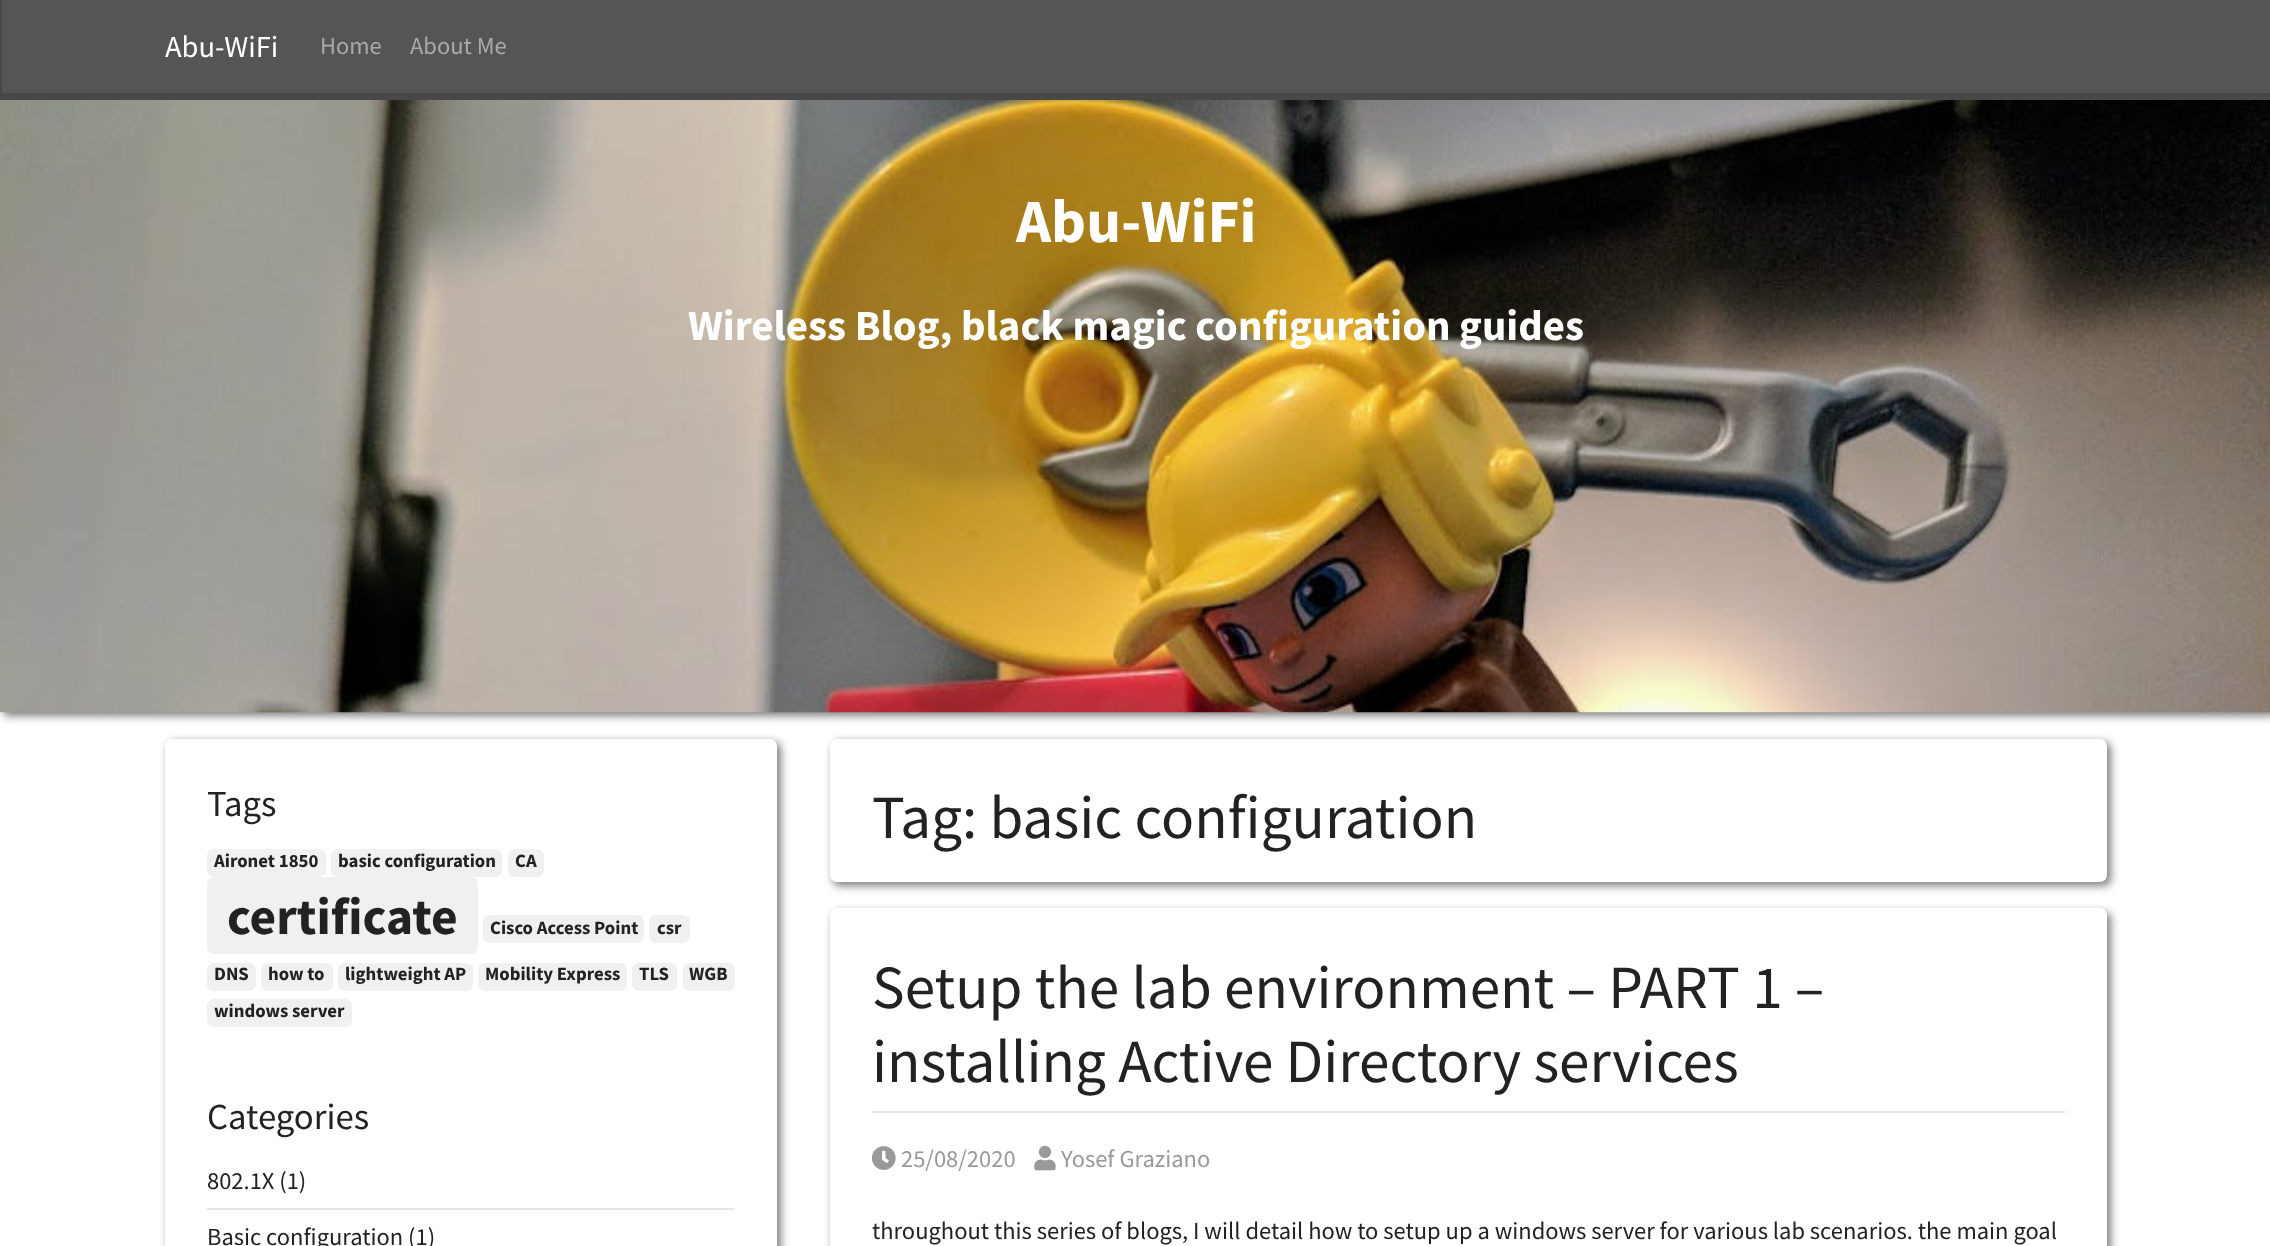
async function draw(canvas) {
  canvas.width = 2270
  canvas.height = 1246
  const ctx = canvas.getContext('2d')
  ctx.miterLimit = 4
  ctx.fontKerning = 'normal'
  async function loadImage(src) {
    const img = new Image()
    img.src = src
    await img.decode()
    return img
  }

  ctx.fillStyle = '#fff'
  ctx.fillRect(0, 0, 2270, 1246)
  ctx.fillStyle = '#00000080'
  ctx.filter = 'blur(4.5px)'
  ctx.beginPath()
  ctx.rect(4, 103, 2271, 613)
  ctx.fill()
  ctx.filter = 'none'
  ctx.fillStyle = '#555'
  ctx.fillRect(2, 0, 2268, 93)
  ctx.fillStyle = '#484848'
  ctx.fillRect(0, 93, 2270, 7)
  ctx.fillRect(0, 0, 2, 100)
  ctx.font = '30.5px Source Sans Pro'
  ctx.fillStyle = '#fff'
  ctx.fillText('Abu-WiFi', 165, 57)
  ctx.font = '24.5px Source Sans Pro'
  ctx.fillStyle = '#aaa'
  ctx.fillText('Home', 320, 54)
  ctx.fillText('About Me', 410, 54)
  ctx.drawImage(await loadImage('image0.png'), 0, 100, 2270, 613)
  ctx.font = 'bold 61.25px Source Sans Pro'
  ctx.fillStyle = '#fff'
  ctx.fillText('Abu-WiFi', 1016, 242)
  ctx.font = 'bold 42.9px Source Sans Pro'
  ctx.fillText('Wireless Blog, black magic configuration guides', 688, 340)
  ctx.fillStyle = '#00000080'
  ctx.filter = 'blur(4.5px)'
  ctx.beginPath()
  ctx.roundRect(168, 742, 613, 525, 7)
  ctx.fill()
  ctx.filter = 'none'
  ctx.fillStyle = '#fff'
  ctx.beginPath()
  ctx.roundRect(165, 739, 612, 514, 7)
  ctx.fill()
  ctx.font = '36.75px Source Sans Pro'
  ctx.fillStyle = '#222'
  ctx.fillText('Tags', 207, 816)
  ctx.fillStyle = '#f0f0f0'
  ctx.beginPath()
  ctx.roundRect(207, 849, 119, 28, 7)
  ctx.fill()
  ctx.font = 'bold 18.75px Source Sans Pro'
  ctx.fillStyle = '#222'
  ctx.fillText('Aironet 1850', 214, 867)
  ctx.fillStyle = '#f0f0f0'
  ctx.beginPath()
  ctx.roundRect(331, 849, 171, 28, 7)
  ctx.fill()
  ctx.fillStyle = '#222'
  ctx.fillText('basic configuration', 338, 867)
  ctx.fillStyle = '#f0f0f0'
  ctx.beginPath()
  ctx.roundRect(508, 849, 36, 28, 7)
  ctx.fill()
  ctx.fillStyle = '#222'
  ctx.fillText('CA', 515, 867)
  ctx.fillStyle = '#f0f0f0'
  ctx.beginPath()
  ctx.roundRect(207, 877, 271, 77, 7)
  ctx.fill()
  ctx.font = 'bold 51.5px Source Sans Pro'
  ctx.fillStyle = '#222'
  ctx.fillText('certificate', 227, 934)
  ctx.fillStyle = '#f0f0f0'
  ctx.beginPath()
  ctx.roundRect(483, 915, 161, 28, 7)
  ctx.fill()
  ctx.font = 'bold 18.75px Source Sans Pro'
  ctx.fillStyle = '#222'
  ctx.fillText('Cisco Access Point', 490, 934)
  ctx.fillStyle = '#f0f0f0'
  ctx.beginPath()
  ctx.roundRect(649, 915, 41, 28, 7)
  ctx.fill()
  ctx.fillStyle = '#222'
  ctx.fillText('csr', 657, 934)
  ctx.fillStyle = '#f0f0f0'
  ctx.beginPath()
  ctx.roundRect(207, 963, 49, 28, 7)
  ctx.fill()
  ctx.fillStyle = '#222'
  ctx.fillText('DNS', 214, 980)
  ctx.fillStyle = '#f0f0f0'
  ctx.beginPath()
  ctx.roundRect(261, 963, 72, 28, 7)
  ctx.fill()
  ctx.fillStyle = '#222'
  ctx.fillText('how to', 268, 980)
  ctx.fillStyle = '#f0f0f0'
  ctx.beginPath()
  ctx.roundRect(338, 963, 135, 28, 7)
  ctx.fill()
  ctx.fillStyle = '#222'
  ctx.fillText('lightweight AP', 345, 980)
  ctx.fillStyle = '#f0f0f0'
  ctx.beginPath()
  ctx.roundRect(478, 963, 149, 28, 7)
  ctx.fill()
  ctx.fillStyle = '#222'
  ctx.fillText('Mobility Express', 485, 980)
  ctx.fillStyle = '#f0f0f0'
  ctx.beginPath()
  ctx.roundRect(632, 963, 45, 28, 7)
  ctx.fill()
  ctx.fillStyle = '#222'
  ctx.fillText('TLS', 639, 980)
  ctx.fillStyle = '#f0f0f0'
  ctx.beginPath()
  ctx.roundRect(683, 963, 52, 28, 7)
  ctx.fill()
  ctx.fillStyle = '#222'
  ctx.fillText('WGB', 689, 980)
  ctx.fillStyle = '#f0f0f0'
  ctx.beginPath()
  ctx.roundRect(207, 999, 145, 28, 7)
  ctx.fill()
  ctx.fillStyle = '#222'
  ctx.fillText('windows server', 214, 1017)
  ctx.font = '36.75px Source Sans Pro'
  ctx.fillText('Categories', 207, 1129)
  ctx.fillStyle = '#e6e6e6'
  ctx.fillRect(207, 1208, 528, 2)
  ctx.font = '24.5px Source Sans Pro'
  ctx.fillStyle = '#222'
  ctx.fillText('802.1X (1)', 207, 1189)
  ctx.fillText('Basic configuration (1)', 207, 1245)
  ctx.fillStyle = '#00000080'
  ctx.filter = 'blur(4.5px)'
  ctx.beginPath()
  ctx.roundRect(833, 742, 1278, 144, 7)
  ctx.fill()
  ctx.filter = 'none'
  ctx.fillStyle = '#fff'
  ctx.beginPath()
  ctx.roundRect(830, 739, 1277, 143, 7)
  ctx.fill()
  ctx.font = '61.25px Source Sans Pro'
  ctx.fillStyle = '#222'
  ctx.fillText('Tag: basic configuration', 872, 838)
  ctx.fillStyle = '#00000080'
  ctx.filter = 'blur(4.5px)'
  ctx.beginPath()
  ctx.roundRect(833, 912, 1278, 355, 7)
  ctx.fill()
  ctx.filter = 'none'
  ctx.fillStyle = '#fff'
  ctx.beginPath()
  ctx.roundRect(830, 908, 1277, 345, 7)
  ctx.fill()
  ctx.fillStyle = '#e6e6e6'
  ctx.fillRect(872, 1111, 1193, 2)
  ctx.fillStyle = '#222'
  ctx.fillText('Setup the lab environment – PART 1 –', 872, 1008)
  ctx.fillText('installing Active Directory services', 872, 1082)
  ctx.drawImage(await loadImage('image1.png'), 871, 1146, 25, 24)
  ctx.font = '24.5px Source Sans Pro'
  ctx.fillStyle = '#999'
  ctx.fillText('25/08/2020', 901, 1167)
  ctx.drawImage(await loadImage('image2.png'), 1034, 1145, 22, 26)
  ctx.fillText('Yosef Graziano', 1061, 1167)
  ctx.fillStyle = '#222'
  ctx.fillText('throughout this series of blogs, I will detail how to setup up a windows server for various lab scenarios. the main goal', 872, 1239)
}

draw(document.querySelector('canvas'))
